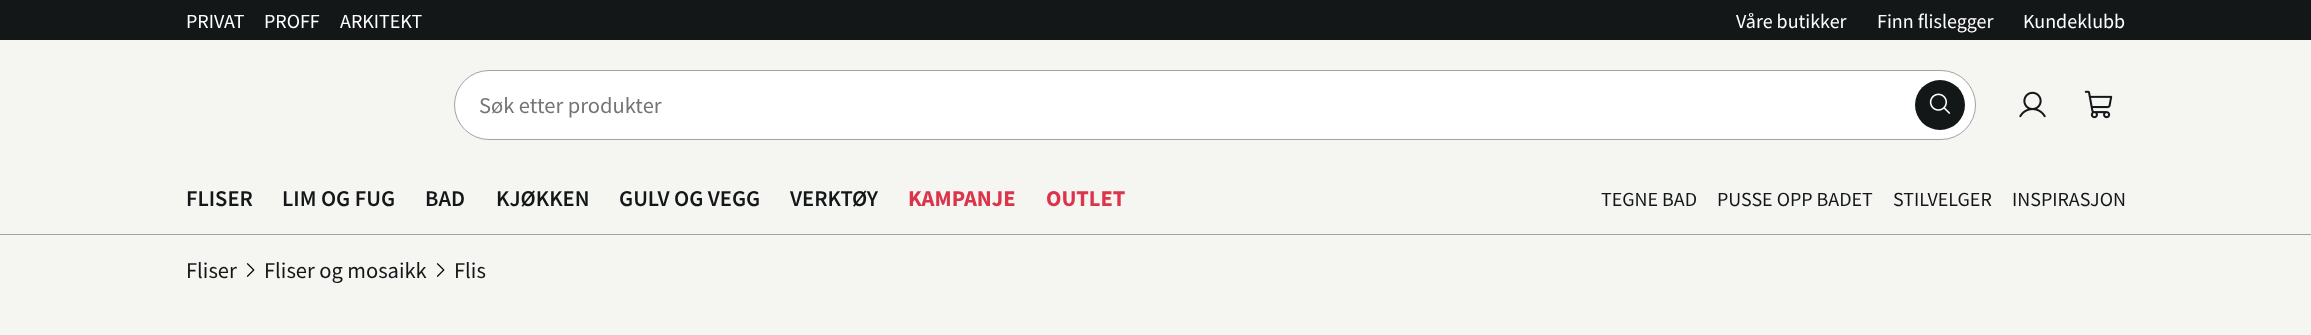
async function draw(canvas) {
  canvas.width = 2311
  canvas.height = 335
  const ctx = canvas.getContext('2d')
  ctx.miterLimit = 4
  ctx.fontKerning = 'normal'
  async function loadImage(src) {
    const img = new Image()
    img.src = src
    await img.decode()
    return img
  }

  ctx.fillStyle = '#f5f5f1'
  ctx.fillRect(0, 0, 2311, 335)
  ctx.fillStyle = '#a1a2a3'
  ctx.fillRect(0, 234, 2311, 1)
  ctx.fillStyle = '#131718'
  ctx.fillRect(0, 0, 2311, 40)
  ctx.font = '20px Source Sans Pro'
  ctx.fillStyle = '#fff'
  ctx.fillText('PRIVAT', 186, 28)
  ctx.fillText('PROFF', 264, 28)
  ctx.fillText('ARKITEKT', 340, 28)
  ctx.fillText('Våre butikker', 1736, 28)
  ctx.fillText('Finn flislegger', 1877, 28)
  ctx.fillText('Kundeklubb', 2023, 28)
  ctx.beginPath()
  ctx.roundRect(454.5, 70.5, 1521, 69, 34.5)
  ctx.fill()
  ctx.strokeStyle = '#a1a2a3'
  ctx.stroke()
  ctx.font = '22.5px Source Sans Pro'
  ctx.fillStyle = '#757575'
  ctx.fillText('Søk etter produkter', 479, 113)
  ctx.fillStyle = '#131718'
  ctx.beginPath()
  ctx.arc(1940, 105, 25, 0, 2 * Math.PI)
  ctx.fill()
  ctx.drawImage(await loadImage('image0.png'), 1929, 93, 22, 21)
  ctx.drawImage(await loadImage('image1.png'), 2019, 91, 27, 27)
  ctx.drawImage(await loadImage('image2.png'), 2084, 90, 29, 29)
  ctx.font = '600 22.5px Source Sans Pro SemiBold'
  ctx.fillText('FLISER', 186, 206)
  ctx.fillText('LIM OG FUG', 282, 206)
  ctx.fillText('BAD', 425, 206)
  ctx.fillText('KJØKKEN', 496, 206)
  ctx.fillText('GULV OG VEGG', 619, 206)
  ctx.fillText('VERKTØY', 790, 206)
  ctx.font = 'bold 22.5px Source Sans Pro'
  ctx.fillStyle = '#dc344a'
  ctx.fillText('KAMPANJE', 908, 206)
  ctx.fillText('OUTLET', 1046, 206)
  ctx.font = '20px Source Sans Pro'
  ctx.fillStyle = '#131718'
  ctx.fillText('TEGNE BAD', 1601, 206)
  ctx.fillText('PUSSE OPP BADET', 1717, 206)
  ctx.fillText('STILVELGER', 1893, 206)
  ctx.fillText('INSPIRASJON', 2012, 206)
  ctx.font = '22.5px Source Sans Pro'
  ctx.fillText('Fliser', 186, 278)
  ctx.drawImage(await loadImage('image3.png'), 246, 263, 9, 14)
  ctx.fillText('Fliser og mosaikk', 264, 278)
  ctx.drawImage(await loadImage('image3.png'), 436, 263, 9, 14)
  ctx.fillText('Flis', 454, 278)
}

draw(document.querySelector('canvas'))
